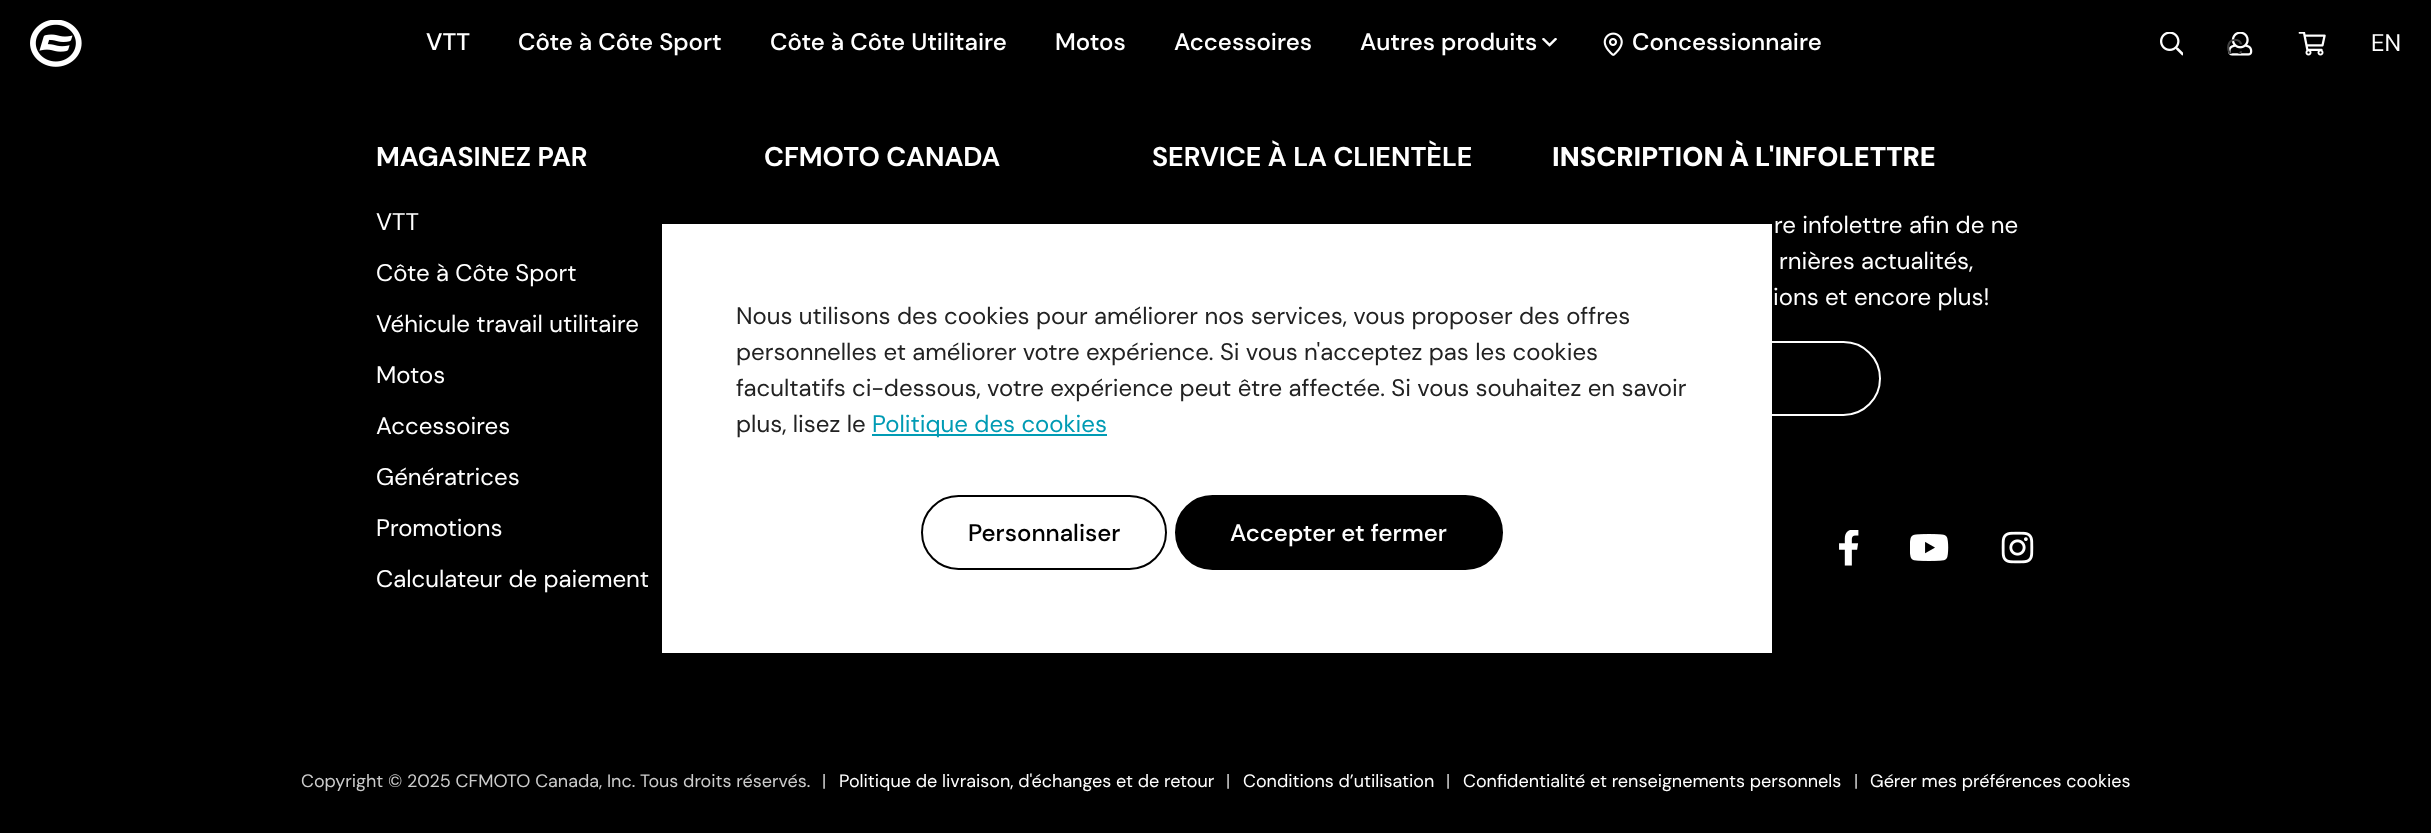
async function draw(canvas) {
  canvas.width = 2431
  canvas.height = 833
  const ctx = canvas.getContext('2d')
  ctx.miterLimit = 4
  ctx.fontKerning = 'normal'
  async function loadImage(src) {
    const img = new Image()
    img.src = src
    await img.decode()
    return img
  }

  ctx.fillStyle = '#000'
  ctx.fillRect(0, 0, 2431, 833)
  ctx.drawImage(await loadImage('image0.png'), 30, 20, 52, 47)
  ctx.font = '500 24px DM Sans'
  ctx.fillStyle = '#fff'
  ctx.fillText('VTT', 426, 50)
  ctx.fillText('Côte à Côte Sport', 518, 50)
  ctx.fillText('Côte à Côte Utilitaire', 770, 50)
  ctx.fillText('Motos', 1055, 50)
  ctx.fillText('Accessoires', 1174, 50)
  ctx.fillText('Autres produits', 1360, 50)
  ctx.drawImage(await loadImage('image1.png'), 1542, 38, 15, 9)
  ctx.drawImage(await loadImage('image2.png'), 1603, 32, 20, 24)
  ctx.fillText('Concessionnaire', 1632, 50)
  ctx.drawImage(await loadImage('image3.png'), 2160, 32, 23, 24)
  ctx.drawImage(await loadImage('image4.png'), 2228, 32, 25, 24)
  ctx.save()
  ctx.beginPath()
  ctx.rect(2226, 30, 26, 24)
  ctx.clip()
  ctx.font = '24px DM Sans'
  ctx.fillStyle = '#424242'
  ctx.fillText('C', 2226, 56)
  ctx.restore()
  ctx.drawImage(await loadImage('image5.png'), 2298, 32, 28, 24)
  ctx.font = '24px DM Sans'
  ctx.fillText('EN', 2371, 51)
  ctx.font = 'bold 27px DM Sans'
  ctx.fillText('MAGASINEZ PAR', 376, 166)
  ctx.font = '24px DM Sans'
  ctx.fillText('VTT', 376, 230)
  ctx.fillText('Côte à Côte Sport', 376, 281)
  ctx.fillText('Véhicule travail utilitaire', 376, 332)
  ctx.fillText('Motos', 376, 383)
  ctx.fillText('Accessoires', 376, 434)
  ctx.fillText('Génératrices', 376, 485)
  ctx.fillText('Promotions', 376, 536)
  ctx.fillText('Calculateur de paiement', 376, 587)
  ctx.font = 'bold 27px DM Sans'
  ctx.fillText('CFMOTO CANADA', 764, 166)
  ctx.fillText('SERVICE À LA CLIENTÈLE', 1152, 166)
  ctx.font = '900 27px DM Sans'
  ctx.fillText('INSCRIPTION À L\'INFOLETTRE', 1552, 166)
  ctx.font = '24px DM Sans'
  ctx.fillText('re infolettre afin de ne', 1774, 233)
  ctx.fillText('rnières actualités,', 1779, 269)
  ctx.fillText('ions et encore plus!', 1773, 305)
  ctx.beginPath()
  ctx.roundRect(1554, 342, 326, 73, 36.5)
  ctx.strokeStyle = '#fff'
  ctx.lineWidth = 2
  ctx.stroke()
  ctx.drawImage(await loadImage('image6.png'), 1839, 530, 20, 36)
  ctx.drawImage(await loadImage('image7.png'), 1910, 534, 39, 27)
  ctx.drawImage(await loadImage('image8.png'), 2001, 531, 33, 33)
  ctx.font = '18px DM Sans'
  ctx.fillStyle = '#ccc'
  ctx.fillText('Copyright © 2025 CFMOTO Canada, Inc. Tous droits réservés.', 301, 787)
  ctx.fillText('|', 822, 787)
  ctx.fillStyle = '#fff'
  ctx.fillText('Politique de livraison, d\'échanges et de retour', 839, 787)
  ctx.fillStyle = '#ccc'
  ctx.fillText('|', 1226, 787)
  ctx.fillStyle = '#fff'
  ctx.fillText('Conditions d’utilisation', 1243, 787)
  ctx.fillStyle = '#ccc'
  ctx.fillText('|', 1446, 787)
  ctx.fillStyle = '#fff'
  ctx.fillText('Confidentialité et renseignements personnels', 1463, 787)
  ctx.fillStyle = '#ccc'
  ctx.fillText('|', 1854, 787)
  ctx.fillStyle = '#fff'
  ctx.fillText('Gérer mes préférences cookies', 1870, 787)
  ctx.fillStyle = '#0000000f'
  ctx.filter = 'blur(13.5px)'
  ctx.beginPath()
  ctx.rect(662, 221, 1110, 429)
  ctx.fill()
  ctx.filter = 'none'
  ctx.fillStyle = '#fff'
  ctx.fillRect(662, 224, 1110, 429)
  ctx.font = '24px DM Sans'
  ctx.fillStyle = '#222'
  ctx.fillText('Nous utilisons des cookies pour améliorer nos services, vous proposer des offres', 736, 324)
  ctx.fillText('personnelles et améliorer votre expérience. Si vous n\'acceptez pas les cookies', 736, 360)
  ctx.fillText('facultatifs ci-dessous, votre expérience peut être affectée. Si vous souhaitez en savoir', 736, 396)
  ctx.fillText('plus, lisez le', 736, 432)
  ctx.fillStyle = '#009bb4'
  ctx.fillRect(872, 434, 235, 2)
  ctx.fillText('Politique des cookies', 872, 432)
  ctx.beginPath()
  ctx.roundRect(922, 496, 244, 73, 36.5)
  ctx.strokeStyle = '#000'
  ctx.stroke()
  ctx.font = '500 24px DM Sans'
  ctx.fillStyle = '#000'
  ctx.fillText('Personnaliser', 968, 541)
  ctx.beginPath()
  ctx.roundRect(1176.5, 496.5, 325, 72, 36)
  ctx.fill()
  ctx.lineWidth = 3
  ctx.stroke()
  ctx.fillStyle = '#fff'
  ctx.fillText('Accepter et fermer', 1230, 541)
}

draw(document.querySelector('canvas'))
